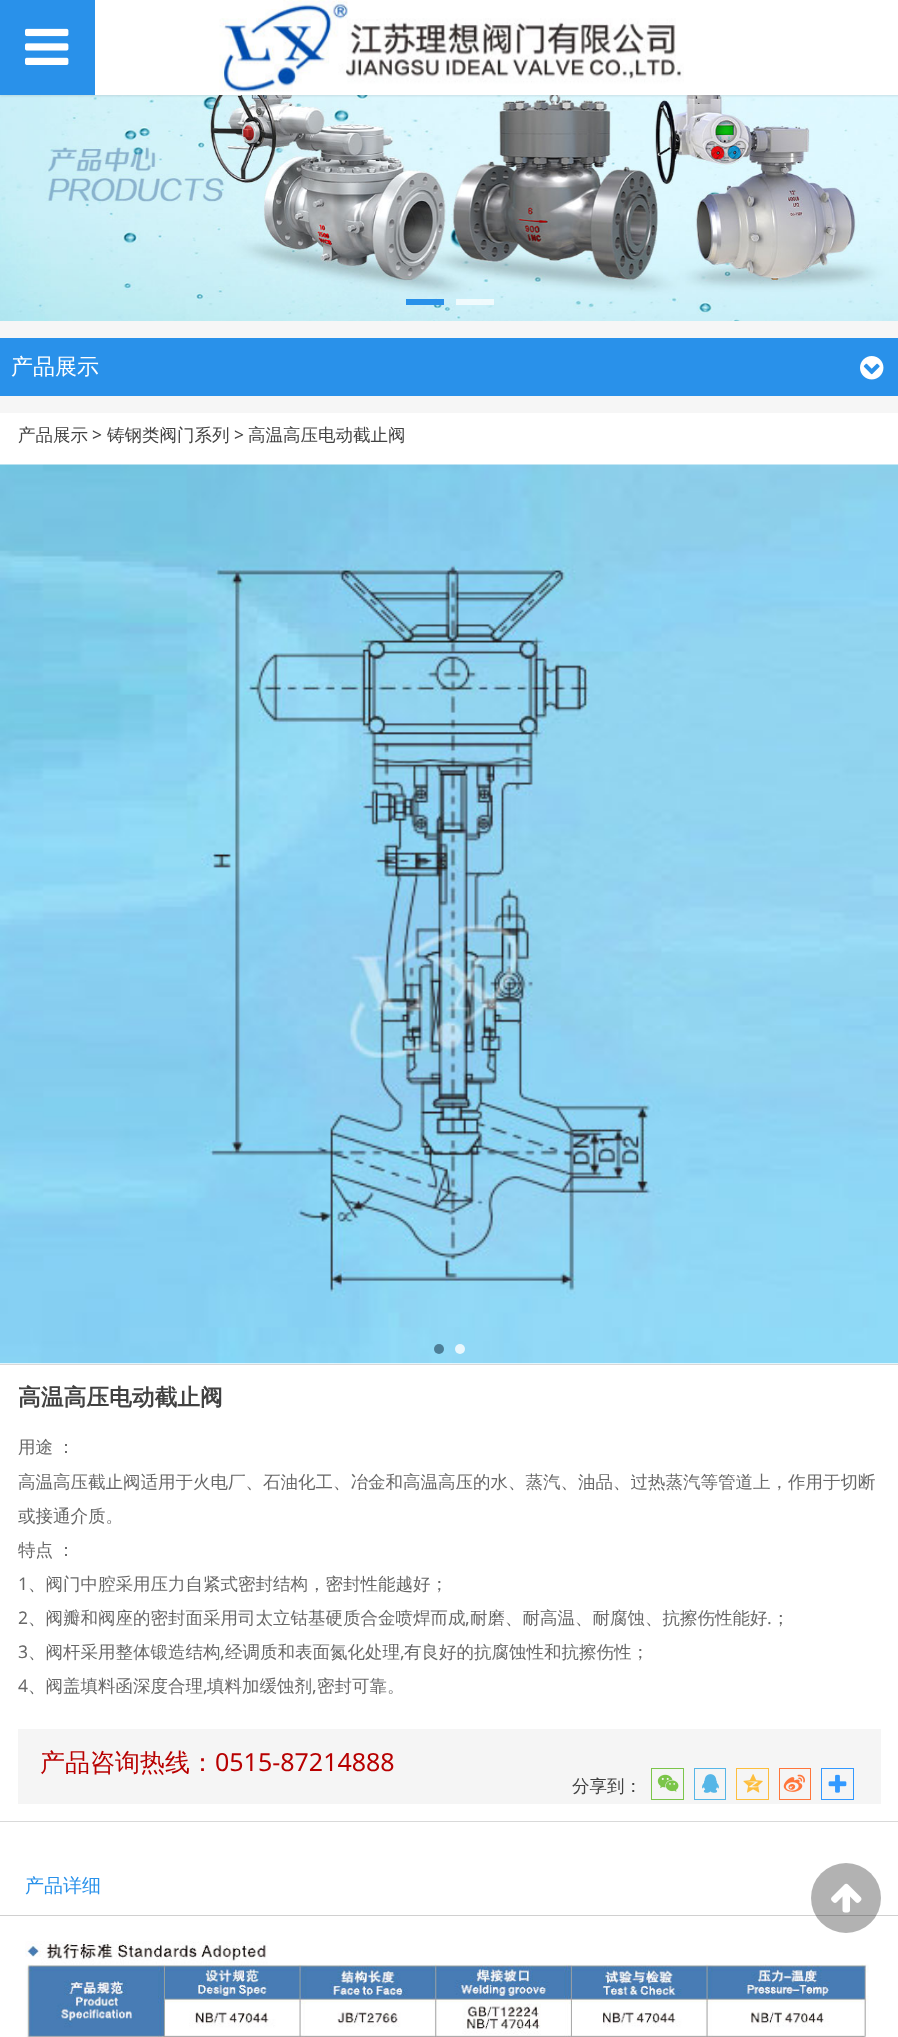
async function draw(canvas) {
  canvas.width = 898
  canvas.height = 2037
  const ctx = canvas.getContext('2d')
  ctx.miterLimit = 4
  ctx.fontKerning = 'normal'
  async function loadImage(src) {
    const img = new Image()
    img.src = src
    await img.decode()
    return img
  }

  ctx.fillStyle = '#f6f6f6'
  ctx.fillRect(0, 0, 898, 2037)
  ctx.drawImage(await loadImage('image2.png'), 0, 95, 898, 226)
  ctx.fillStyle = '#0000001a'
  ctx.filter = 'blur(1px)'
  ctx.beginPath()
  ctx.rect(0, 1, 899, 95)
  ctx.fill()
  ctx.filter = 'none'
  ctx.fillStyle = '#fff'
  ctx.fillRect(95, 0, 803, 95)
  ctx.fillStyle = '#2991ea'
  ctx.fillRect(0, 0, 95, 95)
  ctx.drawImage(await loadImage('image0.png'), 25, 28, 44, 37)
  ctx.drawImage(await loadImage('image1.png'), 219, 0, 465, 92)
  ctx.fillRect(406, 299, 38, 6)
  ctx.fillStyle = '#ffffffb3'
  ctx.fillRect(456, 299, 38, 6)
  ctx.fillStyle = '#2991ea'
  ctx.fillRect(0, 338, 898, 58)
  ctx.font = '500 22px WenQuanYi Zen Hei'
  ctx.fillStyle = '#fff'
  ctx.fillText('产品展示', 11, 374)
  ctx.drawImage(await loadImage('image3.png'), 860, 356, 24, 24)
  ctx.fillRect(0, 413, 898, 1624)
  ctx.font = '500 17.5px WenQuanYi Zen Hei'
  ctx.fillStyle = '#424242'
  ctx.fillText('产品展示', 18, 441)
  ctx.font = '17.5px Noto Sans'
  ctx.fillText('>', 92, 441)
  ctx.font = '500 17.5px WenQuanYi Zen Hei'
  ctx.fillText('铸钢类阀门系列', 107, 441)
  ctx.font = '17.5px Noto Sans'
  ctx.fillText('>', 234, 441)
  ctx.font = '500 17.5px WenQuanYi Zen Hei'
  ctx.fillText('高温高压电动截止阀', 248, 441)
  ctx.drawImage(await loadImage('image4.png'), 0, 464, 898, 900)
  ctx.fillStyle = '#4d7e97'
  ctx.beginPath()
  ctx.arc(439, 1349, 5, 0, 2 * Math.PI)
  ctx.fill()
  ctx.fillStyle = '#e9f7fd'
  ctx.beginPath()
  ctx.arc(460, 1349, 5, 0, 2 * Math.PI)
  ctx.fill()
  ctx.fillStyle = '#d9d9d9'
  ctx.fillRect(0, 1364, 898, 1)
  ctx.fillRect(0, 1821, 898, 1)
  ctx.font = 'bold 22.75px WenQuanYi Zen Hei'
  ctx.fillStyle = '#424242'
  ctx.fillText('高温高压电动截止阀', 18, 1405)
  ctx.wordSpacing = '-1px'
  ctx.font = '500 17.5px WenQuanYi Zen Hei'
  ctx.fillStyle = '#686868'
  ctx.fillText('用途 ：', 18, 1453)
  ctx.wordSpacing = '0px'
  ctx.fillText('高温高压截止阀适用于火电厂、石油化工、冶金和高温高压的水、蒸汽、油品、过热蒸汽等管道上，作用于切断', 18, 1488)
  ctx.fillText('或接通介质。', 18, 1522)
  ctx.wordSpacing = '-1px'
  ctx.fillText('特点 ：', 18, 1556)
  ctx.wordSpacing = '0px'
  ctx.font = '17.5px Noto Sans'
  ctx.fillText('1', 18, 1590)
  ctx.font = '500 17.5px WenQuanYi Zen Hei'
  ctx.fillText('、阀门中腔采用压力自紧式密封结构，密封性能越好；', 28, 1590)
  ctx.font = '17.5px Noto Sans'
  ctx.fillText('2', 18, 1624)
  ctx.font = '500 17.5px WenQuanYi Zen Hei'
  ctx.fillText('、阀瓣和阀座的密封面采用司太立钴基硬质合金喷焊而成', 28, 1624)
  ctx.font = '17.5px Noto Sans'
  ctx.fillText(',', 465, 1624)
  ctx.font = '500 17.5px WenQuanYi Zen Hei'
  ctx.fillText('耐磨、耐高温、耐腐蚀、抗擦伤性能好', 470, 1624)
  ctx.font = '17.5px Noto Sans'
  ctx.fillText('.', 767, 1624)
  ctx.font = '500 17.5px WenQuanYi Zen Hei'
  ctx.fillText('；', 772, 1624)
  ctx.font = '17.5px Noto Sans'
  ctx.fillText('3', 18, 1658)
  ctx.font = '500 17.5px WenQuanYi Zen Hei'
  ctx.fillText('、阀杆采用整体锻造结构', 28, 1658)
  ctx.font = '17.5px Noto Sans'
  ctx.fillText(',', 220, 1658)
  ctx.font = '500 17.5px WenQuanYi Zen Hei'
  ctx.fillText('经调质和表面氮化处理', 225, 1658)
  ctx.font = '17.5px Noto Sans'
  ctx.fillText(',', 400, 1658)
  ctx.font = '500 17.5px WenQuanYi Zen Hei'
  ctx.fillText('有良好的抗腐蚀性和抗擦伤性；', 404, 1658)
  ctx.font = '17.5px Noto Sans'
  ctx.fillText('4', 18, 1692)
  ctx.font = '500 17.5px WenQuanYi Zen Hei'
  ctx.fillText('、阀盖填料函深度合理', 28, 1692)
  ctx.fillText('填料加缓蚀剂', 207, 1692)
  ctx.fillText('密封可靠。', 317, 1692)
  ctx.font = '17.5px Noto Sans'
  ctx.fillText(',', 203, 1692)
  ctx.fillText(',', 312, 1692)
  ctx.fillStyle = '#f5f5f5'
  ctx.fillRect(18, 1729, 863, 75)
  ctx.font = '500 25px WenQuanYi Zen Hei'
  ctx.fillStyle = '#b80000'
  ctx.fillText('产品咨询热线：', 40, 1771)
  ctx.font = '25px Noto Sans'
  ctx.fillText('0515-87214888', 215, 1771)
  ctx.font = '500 17.5px WenQuanYi Zen Hei'
  ctx.fillStyle = '#424242'
  ctx.fillText('分享到：', 572, 1792)
  ctx.strokeStyle = '#7bc549'
  ctx.strokeRect(651.5, 1768.5, 32, 31)
  ctx.drawImage(await loadImage('image5.png'), 657, 1774, 22, 18)
  ctx.strokeStyle = '#56b6e7'
  ctx.strokeRect(694.5, 1768.5, 31, 31)
  ctx.drawImage(await loadImage('image6.png'), 702, 1774, 17, 19)
  ctx.strokeStyle = '#fdbe3d'
  ctx.strokeRect(736.5, 1768.5, 32, 31)
  ctx.drawImage(await loadImage('image7.png'), 743, 1774, 20, 19)
  ctx.strokeStyle = '#ff763b'
  ctx.strokeRect(779.5, 1768.5, 31, 31)
  ctx.drawImage(await loadImage('image8.png'), 783, 1774, 22, 18)
  ctx.strokeStyle = '#39f'
  ctx.strokeRect(821.5, 1768.5, 32, 31)
  ctx.drawImage(await loadImage('image9.png'), 828, 1774, 19, 19)
  ctx.fillStyle = '#d0d0d0'
  ctx.fillRect(0, 1915, 898, 1)
  ctx.font = '500 19px WenQuanYi Zen Hei'
  ctx.fillStyle = '#2991ea'
  ctx.fillText('产品详细', 25, 1892)
  ctx.drawImage(await loadImage('image10.png'), 25, 1941, 844, 96)
  ctx.fillStyle = '#0000004d'
  ctx.beginPath()
  ctx.arc(846, 1898, 35, 0, 2 * Math.PI)
  ctx.fill()
  ctx.drawImage(await loadImage('image11.png'), 831, 1883, 31, 30)
}

draw(document.querySelector('canvas'))
